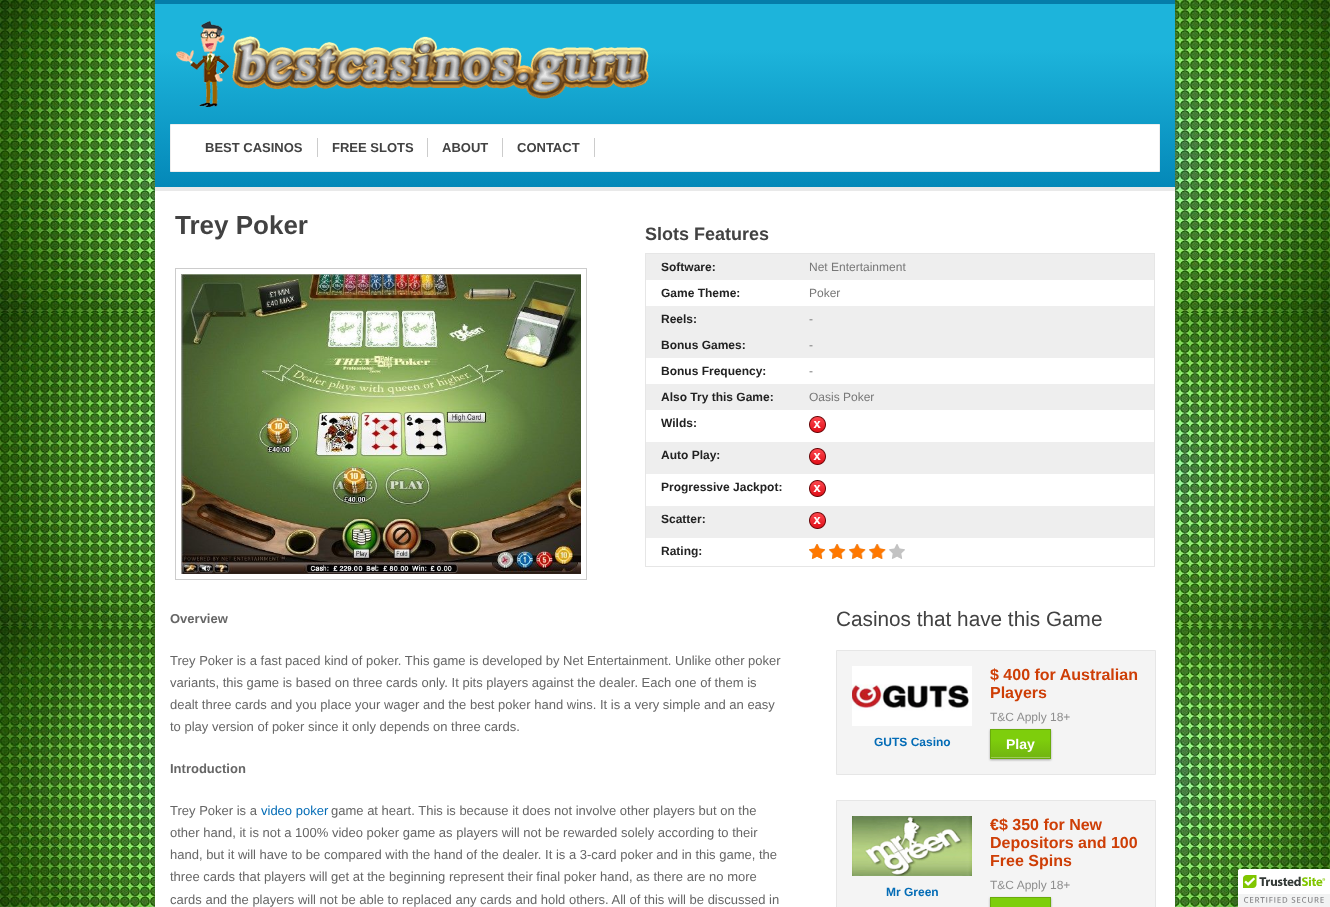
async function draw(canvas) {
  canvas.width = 1330
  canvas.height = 907
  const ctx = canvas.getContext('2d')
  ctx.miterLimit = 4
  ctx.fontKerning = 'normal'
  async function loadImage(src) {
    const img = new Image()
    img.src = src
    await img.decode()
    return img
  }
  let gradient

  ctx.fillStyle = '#fff'
  ctx.fillRect(0, 0, 1330, 907)
  ctx.drawImage(await loadImage('image0.png'), 0, 0, 1330, 907)
  gradient = ctx.createLinearGradient(665, 4, 665, 187)
  gradient.addColorStop(0.25, '#1db4db')
  gradient.addColorStop(1, '#0488b8')
  ctx.fillStyle = gradient
  ctx.fillRect(155, 4, 1020, 183)
  ctx.fillStyle = '#057da9'
  ctx.fillRect(155, 0, 1020, 4)
  ctx.fillStyle = '#e9e9e9'
  ctx.fillRect(155, 187, 1020, 4)
  ctx.drawImage(await loadImage('image1.png'), 176, 21, 473, 86)
  ctx.fillStyle = '#fff'
  ctx.beginPath()
  ctx.rect(170.5, 124.5, 989, 47)
  ctx.fill()
  ctx.strokeStyle = '#eee'
  ctx.stroke()
  ctx.font = 'bold 13px Liberation Sans'
  ctx.fillStyle = '#424242'
  ctx.fillText('BEST CASINOS', 205, 152)
  ctx.fillStyle = '#ccc'
  ctx.fillRect(317, 138, 1, 19)
  ctx.fillStyle = '#424242'
  ctx.fillText('FREE SLOTS', 332, 152)
  ctx.fillStyle = '#ccc'
  ctx.fillRect(427, 138, 1, 19)
  ctx.fillStyle = '#424242'
  ctx.fillText('ABOUT', 442, 152)
  ctx.fillStyle = '#ccc'
  ctx.fillRect(502, 138, 1, 19)
  ctx.fillStyle = '#424242'
  ctx.fillText('CONTACT', 517, 152)
  ctx.fillStyle = '#ccc'
  ctx.fillRect(594, 138, 1, 19)
  ctx.fillStyle = '#fff'
  ctx.fillRect(155, 191, 1020, 716)
  ctx.font = 'bold 26px Liberation Sans'
  ctx.fillStyle = '#424242'
  ctx.fillText('Trey Poker', 175, 234)
  ctx.strokeStyle = '#ccc'
  ctx.strokeRect(175.5, 268.5, 411, 311)
  ctx.drawImage(await loadImage('image2.png'), 181, 274, 400, 300)
  ctx.font = 'bold 18px Liberation Sans'
  ctx.fillText('Slots Features', 645, 240)
  ctx.strokeStyle = '#e6e6e6'
  ctx.strokeRect(645.5, 253.5, 509, 313)
  ctx.fillStyle = '#eee'
  ctx.fillRect(646, 254, 508, 26)
  ctx.font = 'bold 12px Liberation Sans'
  ctx.fillStyle = '#222'
  ctx.fillText('Software:', 661, 271)
  ctx.font = '12px Liberation Sans'
  ctx.fillStyle = '#777'
  ctx.fillText('Net Entertainment', 809, 271)
  ctx.font = 'bold 12px Liberation Sans'
  ctx.fillStyle = '#222'
  ctx.fillText('Game Theme:', 661, 297)
  ctx.font = '12px Liberation Sans'
  ctx.fillStyle = '#777'
  ctx.fillText('Poker', 809, 297)
  ctx.fillStyle = '#eee'
  ctx.fillRect(646, 306, 508, 52)
  ctx.font = 'bold 12px Liberation Sans'
  ctx.fillStyle = '#222'
  ctx.fillText('Reels:', 661, 323)
  ctx.font = '12px Liberation Sans'
  ctx.fillStyle = '#777'
  ctx.fillText('-', 809, 323)
  ctx.font = 'bold 12px Liberation Sans'
  ctx.fillStyle = '#222'
  ctx.fillText('Bonus Games:', 661, 349)
  ctx.font = '12px Liberation Sans'
  ctx.fillStyle = '#777'
  ctx.fillText('-', 809, 349)
  ctx.font = 'bold 12px Liberation Sans'
  ctx.fillStyle = '#222'
  ctx.fillText('Bonus Frequency:', 661, 375)
  ctx.font = '12px Liberation Sans'
  ctx.fillStyle = '#777'
  ctx.fillText('-', 809, 375)
  ctx.fillStyle = '#eee'
  ctx.fillRect(646, 384, 508, 26)
  ctx.font = 'bold 12px Liberation Sans'
  ctx.fillStyle = '#222'
  ctx.fillText('Also Try this Game:', 661, 401)
  ctx.font = '12px Liberation Sans'
  ctx.fillStyle = '#777'
  ctx.fillText('Oasis Poker', 809, 401)
  ctx.font = 'bold 12px Liberation Sans'
  ctx.fillStyle = '#222'
  ctx.fillText('Wilds:', 661, 427)
  ctx.drawImage(await loadImage('image3.png'), 809, 416, 17, 17)
  ctx.fillStyle = '#eee'
  ctx.fillRect(646, 442, 508, 32)
  ctx.fillStyle = '#222'
  ctx.fillText('Auto Play:', 661, 459)
  ctx.drawImage(await loadImage('image4.png'), 809, 448, 17, 17)
  ctx.fillText('Progressive Jackpot:', 661, 491)
  ctx.drawImage(await loadImage('image3.png'), 809, 480, 17, 17)
  ctx.fillStyle = '#eee'
  ctx.fillRect(646, 506, 508, 32)
  ctx.fillStyle = '#222'
  ctx.fillText('Scatter:', 661, 523)
  ctx.drawImage(await loadImage('image4.png'), 809, 512, 17, 17)
  ctx.fillText('Rating:', 661, 555)
  ctx.drawImage(await loadImage('image5.png'), 809, 544, 96, 15)
  ctx.drawImage(await loadImage('image6.png'), 809, 544, 77, 15)
  ctx.font = 'bold 13px Liberation Sans'
  ctx.fillStyle = '#666'
  ctx.fillText('Overview', 170, 623)
  ctx.font = '13px Liberation Sans'
  ctx.fillText('Trey Poker is a fast paced kind of poker. This game is developed by Net Entertainment. Unlike other poker', 170, 665)
  ctx.fillText('variants, this game is based on three cards only. It pits players against the dealer. Each one of them is', 170, 687)
  ctx.fillText('dealt three cards and you place your wager and the best poker hand wins. It is a very simple and an easy', 170, 709)
  ctx.fillText('to play version of poker since it only depends on three cards.', 170, 731)
  ctx.font = 'bold 13px Liberation Sans'
  ctx.fillText('Introduction', 170, 773)
  ctx.font = '13px Liberation Sans'
  ctx.fillText('Trey Poker is a', 170, 815)
  ctx.fillStyle = '#046cb6'
  ctx.fillText('video poker', 261, 815)
  ctx.fillStyle = '#666'
  ctx.fillText('game at heart. This is because it does not involve other players but on the', 331, 815)
  ctx.fillText('other hand, it is not a 100% video poker game as players will not be rewarded solely according to their', 170, 837)
  ctx.fillText('hand, but it will have to be compared with the hand of the dealer. It is a 3-card poker and in this game, the', 170, 859)
  ctx.fillText('three cards that players will get at the beginning represent their final poker hand, as there are no more', 170, 881)
  ctx.fillText('cards and the players will not be able to replaced any cards and hold others. All of this will be discussed in', 170, 904)
  ctx.font = '20.75px Liberation Sans'
  ctx.fillStyle = '#424242'
  ctx.fillText('Casinos that have this Game', 836, 626)
  ctx.fillStyle = '#f4f4f4'
  ctx.beginPath()
  ctx.rect(836.5, 650.5, 319, 124)
  ctx.fill()
  ctx.stroke()
  ctx.drawImage(await loadImage('image7.png'), 852, 666, 120, 60)
  ctx.font = 'bold 12px Liberation Sans'
  ctx.fillStyle = '#046cb6'
  ctx.fillText('GUTS Casino', 874, 746)
  ctx.font = 'bold 16px Liberation Sans'
  ctx.fillStyle = '#ce3e06'
  ctx.fillText('$ 400 for Australian', 990, 680)
  ctx.fillText('Players', 990, 698)
  ctx.font = '12px Liberation Sans'
  ctx.fillStyle = '#8e8e8e'
  ctx.fillText('T&C Apply 18+', 990, 721)
  ctx.fillStyle = '#00000054'
  ctx.filter = 'blur(1px)'
  ctx.beginPath()
  ctx.rect(990, 730, 61, 30)
  ctx.fill()
  ctx.filter = 'none'
  gradient = ctx.createLinearGradient(1021, 730, 1021, 758)
  gradient.addColorStop(0.33, '#7ece0c')
  gradient.addColorStop(1, '#71b410')
  ctx.fillStyle = gradient
  ctx.fillRect(991, 730, 59, 27)
  ctx.fillStyle = '#9ccb58'
  ctx.fillRect(991, 757, 59, 1)
  ctx.strokeStyle = '#6aab0d'
  ctx.strokeRect(990.5, 729.5, 60, 29)
  ctx.font = 'bold 14px Liberation Sans'
  ctx.fillStyle = '#fff'
  ctx.fillText('Play', 1006, 749)
  ctx.fillStyle = '#f4f4f4'
  ctx.beginPath()
  ctx.rect(836.5, 800.5, 319, 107)
  ctx.fill()
  ctx.strokeStyle = '#e6e6e6'
  ctx.stroke()
  ctx.drawImage(await loadImage('image8.png'), 852, 816, 120, 60)
  ctx.font = 'bold 12px Liberation Sans'
  ctx.fillStyle = '#046cb6'
  ctx.fillText('Mr Green', 886, 896)
  ctx.font = 'bold 16px Liberation Sans'
  ctx.fillStyle = '#ce3e06'
  ctx.fillText('€$ 350 for New', 990, 830)
  ctx.fillText('Depositors and 100', 990, 848)
  ctx.fillText('Free Spins', 990, 866)
  ctx.font = '12px Liberation Sans'
  ctx.fillStyle = '#8e8e8e'
  ctx.fillText('T&C Apply 18+', 990, 889)
  ctx.fillStyle = '#00000054'
  ctx.filter = 'blur(1px)'
  ctx.beginPath()
  ctx.rect(990, 898, 61, 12)
  ctx.fill()
  ctx.filter = 'none'
  gradient = ctx.createLinearGradient(1021, 898, 1021, 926)
  gradient.addColorStop(0.33, '#7ece0c')
  gradient.addColorStop(1, '#71b410')
  ctx.fillStyle = gradient
  ctx.fillRect(991, 898, 59, 9)
  ctx.strokeStyle = '#6aab0d'
  ctx.strokeRect(990.5, 897.5, 60, 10)
  ctx.fillStyle = '#00000033'
  ctx.filter = 'blur(2.5px)'
  ctx.beginPath()
  ctx.roundRect(1238, 869, 92, 38, 2)
  ctx.fill()
  ctx.filter = 'none'
  ctx.fillStyle = '#fff'
  ctx.beginPath()
  ctx.roundRect(1238, 869, 92, 38, [2, 0, 0, 0])
  ctx.fill()
  ctx.drawImage(await loadImage('image9.png'), 1238, 869, 92, 38)
}

draw(document.querySelector('canvas'))
